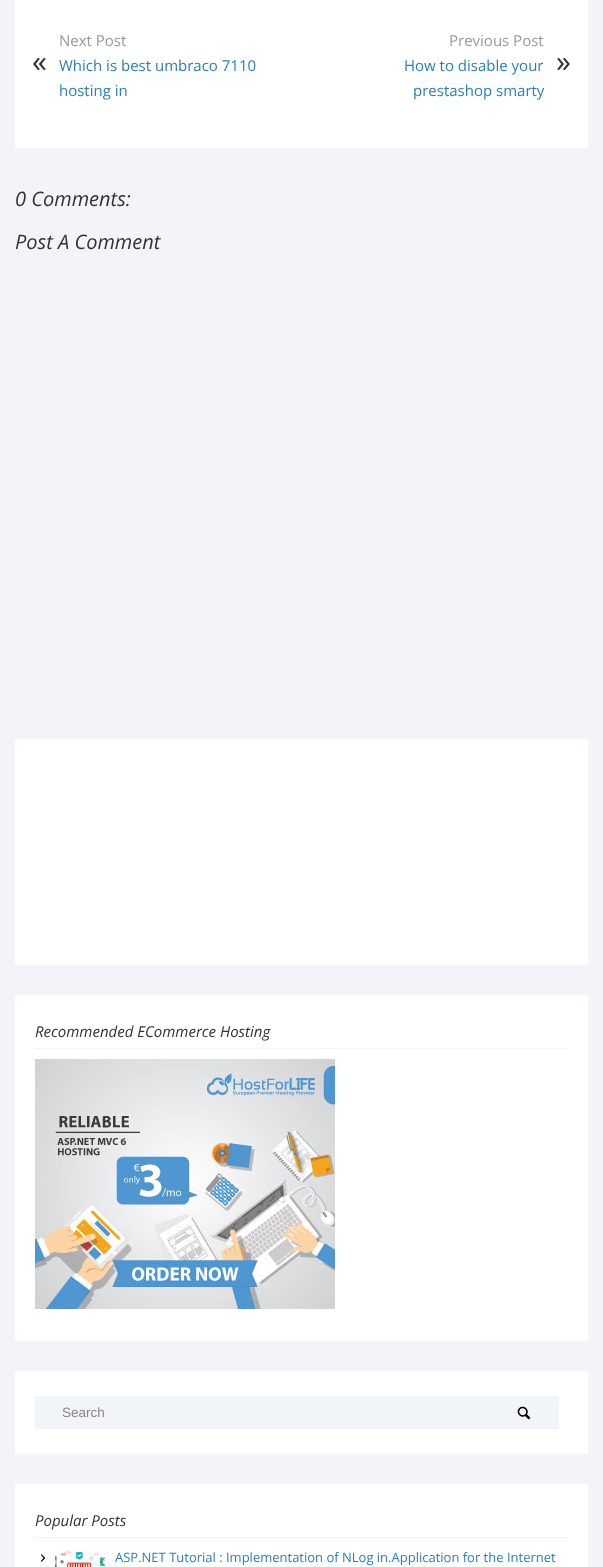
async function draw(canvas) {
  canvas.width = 603
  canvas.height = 1567
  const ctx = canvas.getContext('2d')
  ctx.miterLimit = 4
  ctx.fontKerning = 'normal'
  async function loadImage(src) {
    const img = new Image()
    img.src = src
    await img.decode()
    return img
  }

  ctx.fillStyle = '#f2f4f9'
  ctx.fillRect(0, 0, 603, 1567)
  ctx.fillStyle = '#fff'
  ctx.fillRect(15, 0, 573, 148)
  ctx.font = '15px Open Sans'
  ctx.fillStyle = '#999'
  ctx.fillText('Next Post', 59, 46)
  ctx.font = '30px Open Sans'
  ctx.fillStyle = '#333'
  ctx.fillText('«', 32, 72)
  ctx.font = '15px Open Sans'
  ctx.fillStyle = '#2980b9'
  ctx.fillText('Which is best umbraco 7110', 59, 71)
  ctx.fillText('hosting in', 59, 96)
  ctx.fillStyle = '#999'
  ctx.fillText('Previous Post', 449, 46)
  ctx.fillStyle = '#2980b9'
  ctx.fillText('How to disable your', 404, 71)
  ctx.font = '30px Open Sans'
  ctx.fillStyle = '#333'
  ctx.fillText('»', 556, 72)
  ctx.font = '15px Open Sans'
  ctx.fillStyle = '#2980b9'
  ctx.fillText('prestashop smarty', 413, 96)
  ctx.font = 'italic 20px Open Sans'
  ctx.fillStyle = '#333'
  ctx.fillText('0 Comments:', 15, 206)
  ctx.fillText('Post A Comment', 15, 249)
  ctx.fillStyle = '#fff'
  ctx.fillRect(15, 739, 573, 226)
  ctx.fillRect(15, 995, 573, 346)
  ctx.fillStyle = '#f1f4f9'
  ctx.fillRect(35, 1048, 533, 1)
  ctx.font = 'italic 15px Open Sans'
  ctx.fillStyle = '#333'
  ctx.fillText('Recommended ECommerce Hosting', 35, 1037)
  ctx.drawImage(await loadImage('image0.png'), 35, 1059, 300, 250)
  ctx.fillStyle = '#fff'
  ctx.fillRect(15, 1371, 573, 83)
  ctx.fillStyle = '#f1f4f9'
  ctx.fillRect(35, 1396, 524, 33)
  ctx.drawImage(await loadImage('image1.png'), 517, 1406, 14, 14)
  ctx.font = '13.5px Liberation Sans'
  ctx.fillStyle = '#888'
  ctx.fillText('Search', 62, 1417)
  ctx.fillStyle = '#fff'
  ctx.fillRect(15, 1484, 573, 83)
  ctx.fillStyle = '#f1f4f9'
  ctx.fillRect(35, 1537, 533, 1)
  ctx.font = 'italic 15px Open Sans'
  ctx.fillStyle = '#333'
  ctx.fillText('Popular Posts', 35, 1526)
  ctx.drawImage(await loadImage('image2.png'), 41, 1554, 4, 8)
  ctx.drawImage(await loadImage('image3.png'), 55, 1550, 50, 17)
  ctx.font = '13px Open Sans'
  ctx.fillStyle = '#2980b9'
  ctx.fillText('ASP.NET Tutorial : Implementation of NLog in.Application for the Internet', 115, 1562)
}

draw(document.querySelector('canvas'))
